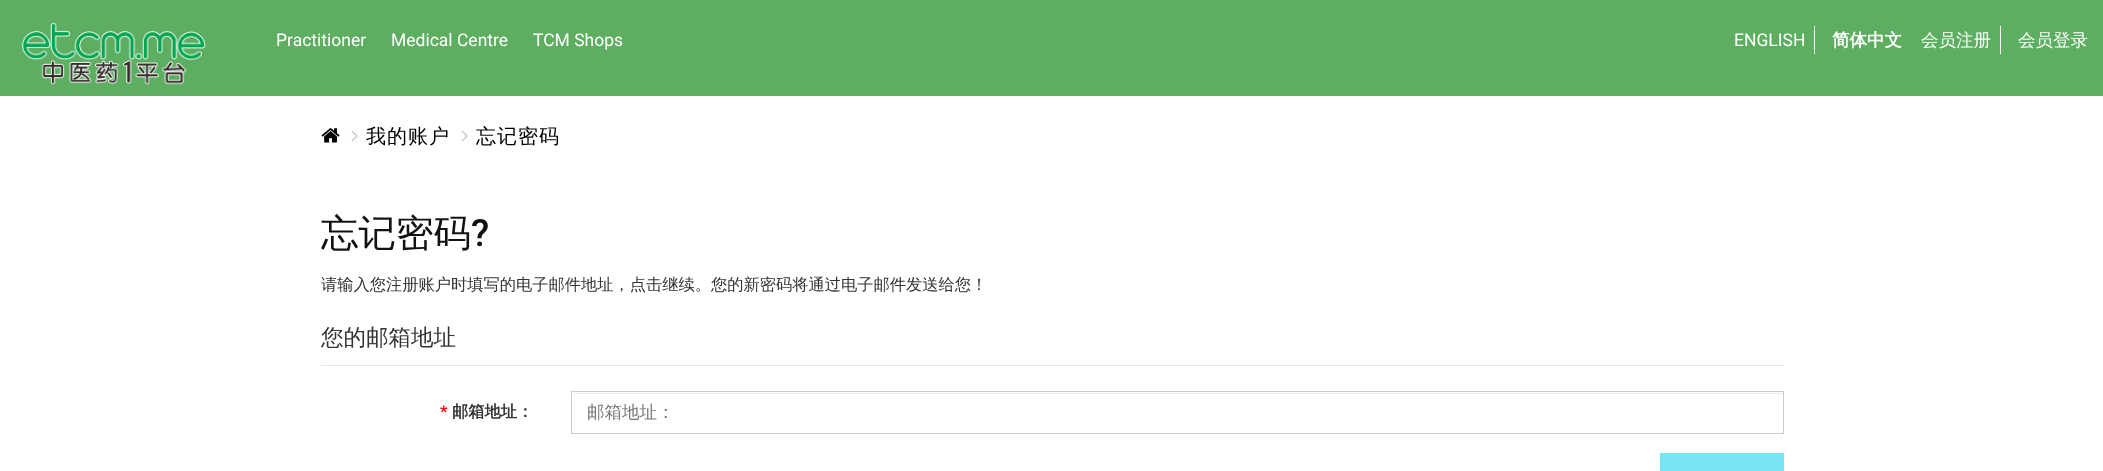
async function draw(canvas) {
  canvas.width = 2103
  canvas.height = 471
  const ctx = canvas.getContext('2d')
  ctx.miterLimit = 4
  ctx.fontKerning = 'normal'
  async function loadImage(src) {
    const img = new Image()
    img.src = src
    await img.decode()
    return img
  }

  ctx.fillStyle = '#fff'
  ctx.fillRect(0, 0, 2103, 471)
  ctx.fillStyle = '#5eae62'
  ctx.fillRect(0, 0, 2103, 96)
  ctx.drawImage(await loadImage('image0.png'), 21, 22, 185, 63)
  ctx.font = '17.5px Roboto'
  ctx.fillStyle = '#fff'
  ctx.fillText('Practitioner', 276, 46)
  ctx.fillText('Medical Centre', 391, 46)
  ctx.fillText('TCM Shops', 533, 46)
  ctx.fillRect(1814, 26, 1, 28)
  ctx.fillText('ENGLISH', 1734, 46)
  ctx.font = 'bold 17.5px WenQuanYi Zen Hei'
  ctx.fillText('简体中文', 1832, 46)
  ctx.fillRect(2000, 26, 1, 28)
  ctx.font = '500 17.5px WenQuanYi Zen Hei'
  ctx.fillText('会员注册', 1921, 46)
  ctx.fillText('会员登录', 2018, 46)
  ctx.drawImage(await loadImage('image1.png'), 321, 128, 19, 15)
  ctx.drawImage(await loadImage('image2.png'), 351, 130, 7, 12)
  ctx.letterSpacing = '1px'
  ctx.font = '500 20px WenQuanYi Zen Hei'
  ctx.fillStyle = '#000'
  ctx.fillText('我的账户', 366, 143)
  ctx.drawImage(await loadImage('image2.png'), 461, 130, 7, 12)
  ctx.fillText('忘记密码', 476, 143)
  ctx.letterSpacing = '0px'
  ctx.font = '500 37.5px WenQuanYi Zen Hei'
  ctx.fillStyle = '#111'
  ctx.fillText('忘记密码', 321, 246)
  ctx.font = '500 37.5px Roboto'
  ctx.fillText('?', 471, 246)
  ctx.font = '500 16.25px WenQuanYi Zen Hei'
  ctx.fillStyle = '#333'
  ctx.fillText('请输入您注册账户时填写的电子邮件地址，点击继续。您的新密码将通过电子邮件发送给您！', 321, 290)
  ctx.fillStyle = '#e5e5e5'
  ctx.fillRect(321, 365, 1463, 1)
  ctx.font = '500 22.5px WenQuanYi Zen Hei'
  ctx.fillStyle = '#333'
  ctx.fillText('您的邮箱地址', 321, 345)
  ctx.font = 'bold 16.25px Roboto'
  ctx.fillStyle = '#f00'
  ctx.fillText('*', 440, 417)
  ctx.font = 'bold 16.25px WenQuanYi Zen Hei'
  ctx.fillStyle = '#333'
  ctx.fillText('邮箱地址：', 452, 417)
  ctx.fillStyle = '#ececec'
  ctx.fillRect(573, 393, 1210, 1)
  ctx.strokeStyle = '#ccc'
  ctx.strokeRect(571.5, 391.5, 1212, 42)
  ctx.font = '500 17.5px WenQuanYi Zen Hei'
  ctx.fillStyle = '#777'
  ctx.fillText('邮箱地址：', 587, 418)
  ctx.fillStyle = '#79e4f4'
  ctx.fillRect(1660, 453, 124, 18)
}

draw(document.querySelector('canvas'))
